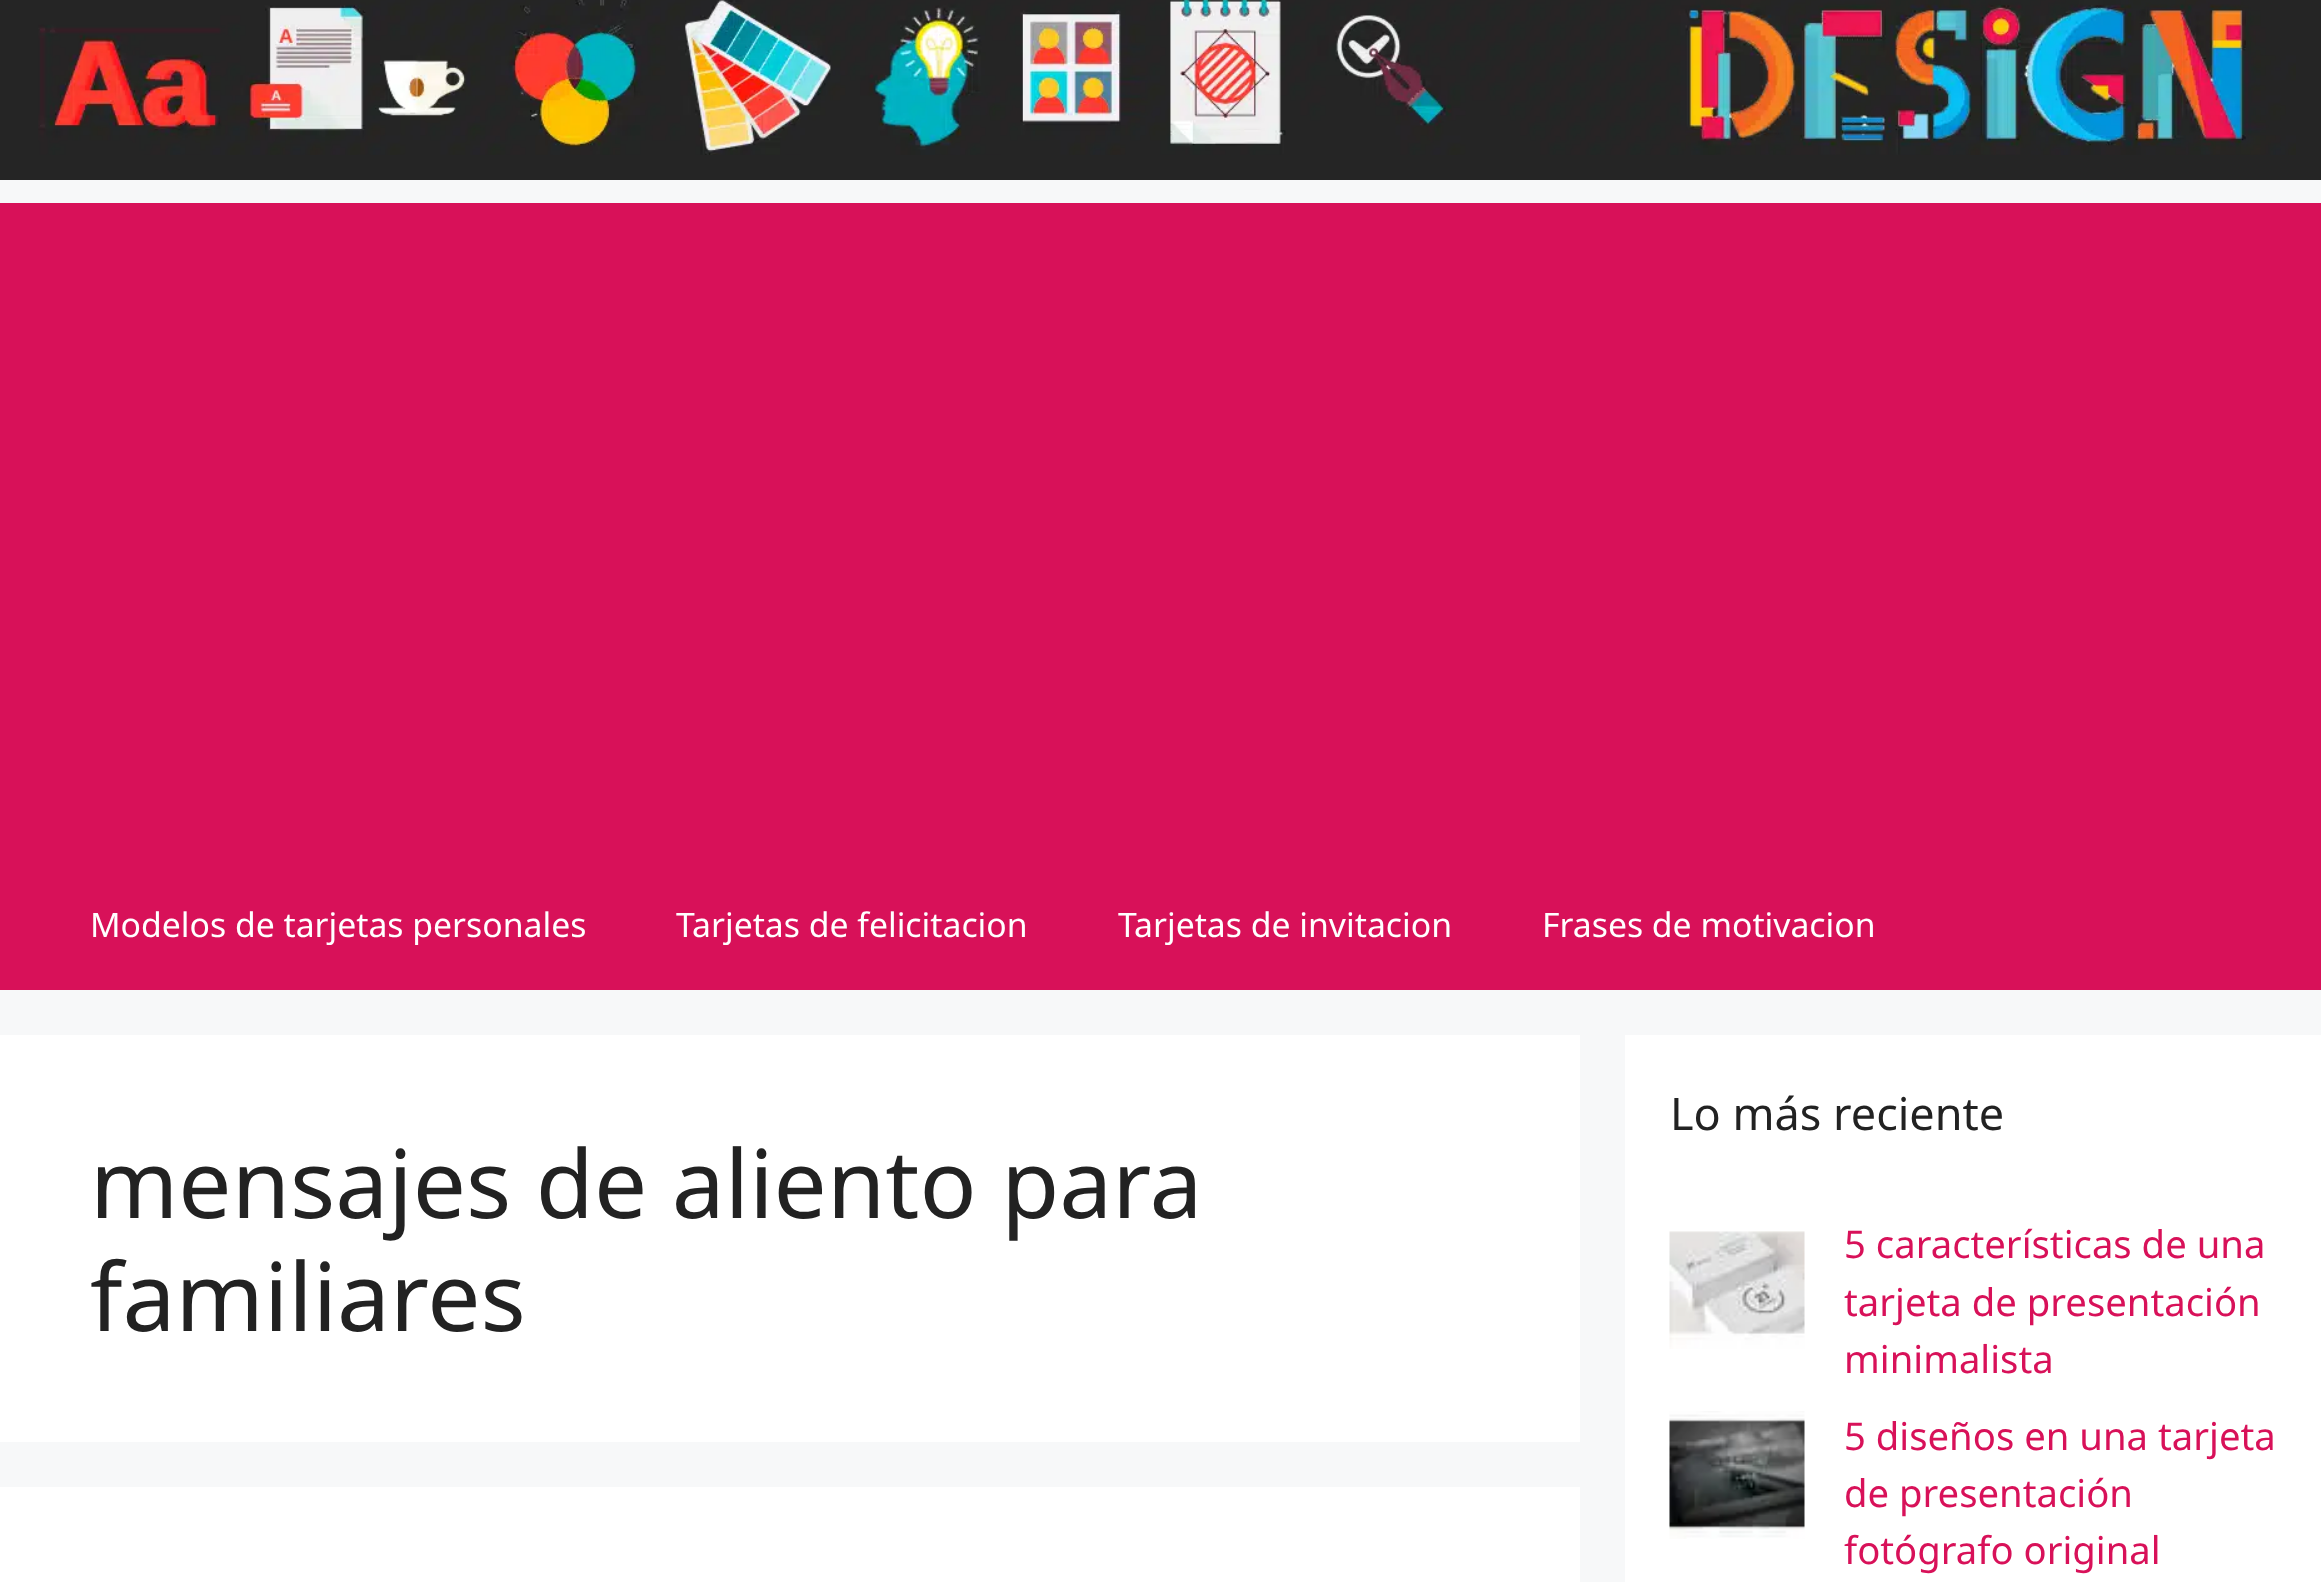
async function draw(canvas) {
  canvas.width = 2321
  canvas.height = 1582
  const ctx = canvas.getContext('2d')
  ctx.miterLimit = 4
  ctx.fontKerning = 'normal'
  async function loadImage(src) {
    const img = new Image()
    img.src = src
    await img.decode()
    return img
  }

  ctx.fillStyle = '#f7f8f9'
  ctx.fillRect(0, 0, 2321, 1582)
  ctx.fillStyle = '#252525'
  ctx.fillRect(0, 0, 2321, 180)
  ctx.drawImage(await loadImage('image0.png'), 38, 0, 2258, 155)
  ctx.fillStyle = '#d81159'
  ctx.fillRect(0, 203, 2321, 787)
  ctx.font = '33.75px Noto Sans'
  ctx.fillStyle = '#fff'
  ctx.fillText('Modelos de tarjetas personales', 90, 937)
  ctx.fillText('Tarjetas de felicitacion', 676, 937)
  ctx.fillText('Tarjetas de invitacion', 1118, 937)
  ctx.fillText('Frases de motivacion', 1542, 937)
  ctx.fillRect(0, 1035, 1580, 407)
  ctx.font = '94.5px Noto Sans'
  ctx.fillStyle = '#222'
  ctx.fillText('mensajes de aliento para', 90, 1218)
  ctx.fillText('familiares', 90, 1331)
  ctx.fillStyle = '#fff'
  ctx.fillRect(0, 1487, 1580, 95)
  ctx.fillRect(1625, 1035, 696, 547)
  ctx.font = '45px Noto Sans'
  ctx.fillStyle = '#222'
  ctx.fillText('Lo más reciente', 1670, 1130)
  ctx.drawImage(await loadImage('image1.png'), 1669, 1231, 136, 118)
  ctx.font = '38.25px Noto Sans'
  ctx.fillStyle = '#d81159'
  ctx.fillText('5 características de una', 1844, 1258)
  ctx.fillText('tarjeta de presentación', 1844, 1316)
  ctx.fillText('minimalista', 1844, 1373)
  ctx.drawImage(await loadImage('image2.png'), 1669, 1411, 136, 128)
  ctx.fillText('5 diseños en una tarjeta', 1844, 1450)
  ctx.fillText('de presentación', 1844, 1507)
  ctx.fillText('fotógrafo original', 1844, 1564)
}

draw(document.querySelector('canvas'))
